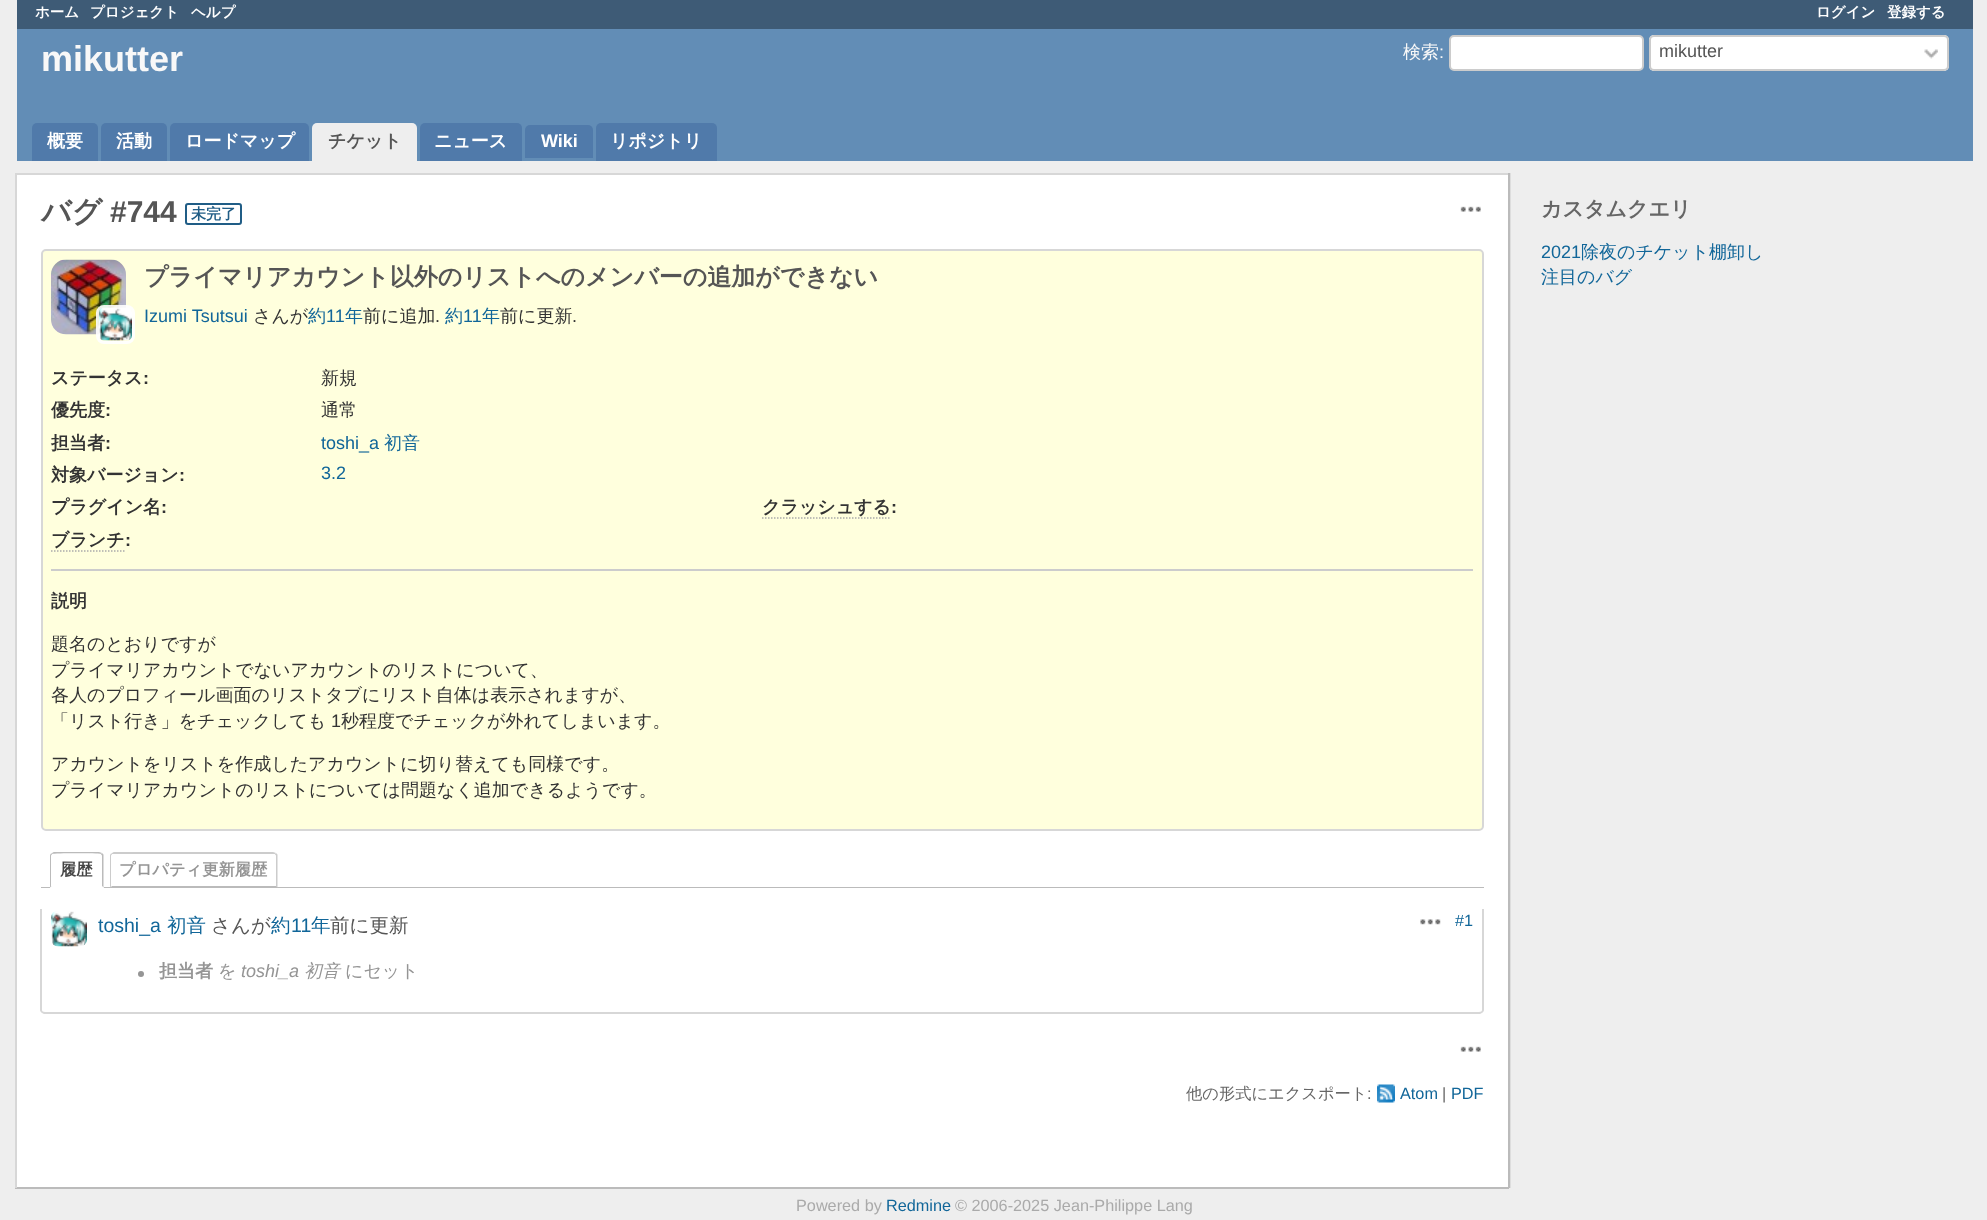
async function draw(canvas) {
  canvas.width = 1987
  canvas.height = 1220
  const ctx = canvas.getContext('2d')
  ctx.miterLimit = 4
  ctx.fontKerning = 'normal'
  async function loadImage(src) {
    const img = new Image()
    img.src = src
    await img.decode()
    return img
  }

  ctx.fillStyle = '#eee'
  ctx.fillRect(0, 0, 1987, 1220)
  ctx.fillStyle = '#3e5b76'
  ctx.fillRect(17, 0, 1956, 29)
  ctx.font = 'bold 14.5px WenQuanYi Zen Hei'
  ctx.fillStyle = '#fff'
  ctx.fillText('ホーム', 35, 17)
  ctx.fillText('プロジェクト', 90, 17)
  ctx.fillText('ヘルプ', 191, 17)
  ctx.fillText('ログイン', 1816, 17)
  ctx.fillText('登録する', 1887, 17)
  ctx.fillStyle = '#628db6'
  ctx.fillRect(17, 29, 1956, 132)
  ctx.font = 'bold 36px Liberation Sans'
  ctx.fillStyle = '#f8f8f8'
  ctx.fillText('mikutter', 41, 71)
  ctx.font = '500 18px WenQuanYi Zen Hei'
  ctx.fillText('検索', 1403, 58)
  ctx.font = '18px Liberation Sans'
  ctx.fillText(':', 1439, 58)
  ctx.fillStyle = '#fff'
  ctx.beginPath()
  ctx.roundRect(1450, 36, 193, 34, 4)
  ctx.fill()
  ctx.strokeStyle = '#ccc'
  ctx.lineWidth = 2
  ctx.stroke()
  ctx.beginPath()
  ctx.roundRect(1649, 35, 300, 36, 5)
  ctx.fill()
  ctx.drawImage(await loadImage('image0.png'), 1924, 49, 14, 10)
  ctx.beginPath()
  ctx.roundRect(1650, 36, 298, 34, 4)
  ctx.stroke()
  ctx.fillStyle = '#555'
  ctx.fillText('mikutter', 1659, 57)
  ctx.fillStyle = '#507aaa'
  ctx.beginPath()
  ctx.roundRect(32, 123, 66, 38, [5, 5, 0, 0])
  ctx.fill()
  ctx.font = 'bold 18px WenQuanYi Zen Hei'
  ctx.fillStyle = '#fff'
  ctx.fillText('概要', 47, 147)
  ctx.fillStyle = '#507aaa'
  ctx.beginPath()
  ctx.roundRect(101, 123, 66, 38, [5, 5, 0, 0])
  ctx.fill()
  ctx.fillStyle = '#fff'
  ctx.fillText('活動', 116, 147)
  ctx.fillStyle = '#507aaa'
  ctx.beginPath()
  ctx.roundRect(170, 123, 139, 38, [5, 5, 0, 0])
  ctx.fill()
  ctx.fillStyle = '#fff'
  ctx.fillText('ロードマップ', 185, 147)
  ctx.fillStyle = '#eee'
  ctx.beginPath()
  ctx.roundRect(312, 123, 105, 38, [5, 5, 0, 0])
  ctx.fill()
  ctx.fillStyle = '#555'
  ctx.fillText('チケット', 328, 147)
  ctx.fillStyle = '#507aaa'
  ctx.beginPath()
  ctx.roundRect(420, 123, 102, 38, [5, 5, 0, 0])
  ctx.fill()
  ctx.fillStyle = '#fff'
  ctx.fillText('ニュース', 434, 147)
  ctx.fillStyle = '#507aaa'
  ctx.beginPath()
  ctx.roundRect(525, 125, 68, 33, [5, 5, 0, 0])
  ctx.fill()
  ctx.font = 'bold 18px Liberation Sans'
  ctx.fillStyle = '#fff'
  ctx.fillText('Wiki', 541, 147)
  ctx.fillStyle = '#507aaa'
  ctx.beginPath()
  ctx.roundRect(596, 123, 121, 38, [5, 5, 0, 0])
  ctx.fill()
  ctx.font = 'bold 18px WenQuanYi Zen Hei'
  ctx.fillStyle = '#fff'
  ctx.fillText('リポジトリ', 610, 147)
  ctx.fillRect(17, 175, 1491, 1012)
  ctx.fillStyle = '#d7d7d7'
  ctx.fillRect(15, 173, 1494, 2)
  ctx.fillStyle = '#bbb'
  ctx.fillRect(1508, 173, 2, 1015)
  ctx.fillRect(15, 1187, 1494, 2)
  ctx.fillStyle = '#d7d7d7'
  ctx.fillRect(15, 173, 2, 1015)
  ctx.font = 'bold 30px WenQuanYi Zen Hei'
  ctx.fillStyle = '#555'
  ctx.fillText('バグ', 41, 222)
  ctx.font = 'bold 30px Liberation Sans'
  ctx.fillText('#744', 110, 222)
  ctx.beginPath()
  ctx.roundRect(186, 204, 55, 20, 2)
  ctx.strokeStyle = '#205d86'
  ctx.stroke()
  ctx.font = 'bold 15px WenQuanYi Zen Hei'
  ctx.fillStyle = '#205d86'
  ctx.fillText('未完了', 191, 219)
  ctx.drawImage(await loadImage('image1.png'), 1460, 206, 21, 6)
  ctx.fillStyle = '#ffd'
  ctx.beginPath()
  ctx.roundRect(42, 250, 1441, 580, 4)
  ctx.fill()
  ctx.strokeStyle = '#d7d7d7'
  ctx.stroke()
  ctx.drawImage(await loadImage('image2.png'), 51, 259, 75, 76)
  ctx.beginPath()
  ctx.roundRect(97.5, 306.5, 36, 36, 6.5)
  ctx.strokeStyle = '#ffffffe6'
  ctx.lineWidth = 3
  ctx.stroke()
  ctx.drawImage(await loadImage('image3.png'), 99, 307, 33, 34)
  ctx.font = 'bold 24px WenQuanYi Zen Hei'
  ctx.fillStyle = '#555'
  ctx.fillText('プライマリアカウント以外のリストへのメンバーの追加ができない', 144, 285)
  ctx.font = '18px Liberation Sans'
  ctx.fillStyle = '#169'
  ctx.fillText('Izumi Tsutsui', 144, 322)
  ctx.font = '500 18px WenQuanYi Zen Hei'
  ctx.fillStyle = '#333'
  ctx.fillText('さんが', 253, 322)
  ctx.fillStyle = '#169'
  ctx.fillText('約', 308, 322)
  ctx.font = '18px Liberation Sans'
  ctx.fillText('11', 326, 322)
  ctx.font = '500 18px WenQuanYi Zen Hei'
  ctx.fillText('年', 345, 322)
  ctx.fillStyle = '#333'
  ctx.fillText('前に追加', 363, 322)
  ctx.font = '18px Liberation Sans'
  ctx.fillText('.', 435, 322)
  ctx.font = '500 18px WenQuanYi Zen Hei'
  ctx.fillStyle = '#169'
  ctx.fillText('約', 445, 322)
  ctx.font = '18px Liberation Sans'
  ctx.fillText('11', 463, 322)
  ctx.font = '500 18px WenQuanYi Zen Hei'
  ctx.fillText('年', 482, 322)
  ctx.fillStyle = '#333'
  ctx.fillText('前に更新', 500, 322)
  ctx.font = '18px Liberation Sans'
  ctx.fillText('.', 572, 322)
  ctx.font = 'bold 18px WenQuanYi Zen Hei'
  ctx.fillText('ステータス', 51, 384)
  ctx.font = 'bold 18px Liberation Sans'
  ctx.fillText(':', 143, 384)
  ctx.font = '500 18px WenQuanYi Zen Hei'
  ctx.fillText('新規', 321, 384)
  ctx.font = 'bold 18px WenQuanYi Zen Hei'
  ctx.fillText('優先度', 51, 416)
  ctx.font = 'bold 18px Liberation Sans'
  ctx.fillText(':', 105, 416)
  ctx.font = '500 18px WenQuanYi Zen Hei'
  ctx.fillText('通常', 321, 416)
  ctx.font = 'bold 18px WenQuanYi Zen Hei'
  ctx.fillText('担当者', 51, 449)
  ctx.font = 'bold 18px Liberation Sans'
  ctx.fillText(':', 105, 449)
  ctx.font = '18px Liberation Sans'
  ctx.fillStyle = '#169'
  ctx.fillText('toshi_a', 321, 449)
  ctx.font = '500 18px WenQuanYi Zen Hei'
  ctx.fillText('初音', 384, 449)
  ctx.font = 'bold 18px WenQuanYi Zen Hei'
  ctx.fillStyle = '#333'
  ctx.fillText('対象バージョン', 51, 481)
  ctx.font = 'bold 18px Liberation Sans'
  ctx.fillText(':', 179, 481)
  ctx.font = '18px Liberation Sans'
  ctx.fillStyle = '#169'
  ctx.fillText('3.2', 321, 479)
  ctx.font = 'bold 18px WenQuanYi Zen Hei'
  ctx.fillStyle = '#333'
  ctx.fillText('プラグイン名', 51, 513)
  ctx.font = 'bold 18px Liberation Sans'
  ctx.fillText(':', 161, 513)
  ctx.font = 'bold 18px WenQuanYi Zen Hei'
  ctx.fillText('ブランチ', 51, 546)
  ctx.beginPath()
  ctx.moveTo(51, 551)
  ctx.lineTo(124.5, 551)
  ctx.strokeStyle = '#aaa'
  ctx.lineWidth = 1.5
  ctx.setLineDash([1.5, 1.5])
  ctx.stroke()
  ctx.font = 'bold 18px Liberation Sans'
  ctx.fillText(':', 125, 546)
  ctx.font = 'bold 18px WenQuanYi Zen Hei'
  ctx.fillText('クラッシュする', 762, 513)
  ctx.beginPath()
  ctx.moveTo(762, 518)
  ctx.lineTo(891, 518)
  ctx.stroke()
  ctx.font = 'bold 18px Liberation Sans'
  ctx.fillText(':', 891, 513)
  ctx.fillStyle = '#ccc'
  ctx.fillRect(51, 569, 1422, 2)
  ctx.font = 'bold 18px WenQuanYi Zen Hei'
  ctx.fillStyle = '#333'
  ctx.fillText('説明', 51, 607)
  ctx.font = '500 18px WenQuanYi Zen Hei'
  ctx.fillText('題名のとおりですが', 51, 650)
  ctx.fillText('プライマリアカウントでないアカウントのリストについて、', 51, 676)
  ctx.fillText('各人のプロフィール画面のリストタブにリスト自体は表示されますが、', 51, 701)
  ctx.fillText('「リスト行き」をチェックしても', 51, 727)
  ctx.font = '18px Liberation Sans'
  ctx.fillText('1', 331, 727)
  ctx.font = '500 18px WenQuanYi Zen Hei'
  ctx.fillText('秒程度でチェックが外れてしまいます。', 341, 727)
  ctx.fillText('アカウントをリストを作成したアカウントに切り替えても同様です。', 51, 770)
  ctx.fillText('プライマリアカウントのリストについては問題なく追加できるようです。', 51, 796)
  ctx.fillStyle = '#bbb'
  ctx.fillRect(41, 887, 1443, 1)
  ctx.fillStyle = '#fff'
  ctx.beginPath()
  ctx.roundRect(50, 852, 54, 36, [5, 5, 0, 0])
  ctx.fill()
  ctx.fillStyle = '#bbb'
  ctx.beginPath()
  ctx.moveTo(54, 852)
  ctx.bezierCurveTo(53, 852, 52, 853, 51, 854)
  ctx.lineTo(52, 854)
  ctx.bezierCurveTo(54, 853, 99, 853, 101, 854)
  ctx.lineTo(102, 853)
  ctx.lineTo(99, 852)
  ctx.closePath()
  ctx.fill()
  ctx.beginPath()
  ctx.moveTo(103.5, 854.5)
  ctx.lineTo(103.5, 888)
  ctx.lineTo(101.5, 886)
  ctx.lineTo(102, 886)
  ctx.lineTo(102, 855.5)
  ctx.lineTo(101, 854.5)
  ctx.lineTo(102, 853)
  ctx.closePath()
  ctx.fill()
  ctx.fillStyle = '#fff'
  ctx.beginPath()
  ctx.moveTo(104, 888)
  ctx.lineTo(102, 886)
  ctx.lineTo(52, 886)
  ctx.lineTo(50, 888)
  ctx.closePath()
  ctx.fill()
  ctx.fillStyle = '#bbb'
  ctx.beginPath()
  ctx.moveTo(51, 853.5)
  ctx.bezierCurveTo(50.5, 854, 50, 855, 50, 856)
  ctx.lineTo(50, 887.5)
  ctx.lineTo(51.5, 886)
  ctx.lineTo(51, 886)
  ctx.lineTo(51, 855.5)
  ctx.lineTo(52, 854.5)
  ctx.closePath()
  ctx.fill()
  ctx.font = 'bold 16.25px WenQuanYi Zen Hei'
  ctx.fillStyle = '#444'
  ctx.fillText('履歴', 60, 875)
  ctx.fillStyle = '#ccc'
  ctx.beginPath()
  ctx.moveTo(114, 852)
  ctx.bezierCurveTo(113, 852, 112, 853, 111, 854)
  ctx.lineTo(112, 854)
  ctx.lineTo(114, 854)
  ctx.lineTo(273, 854)
  ctx.lineTo(275, 854)
  ctx.lineTo(276, 853)
  ctx.lineTo(273, 852)
  ctx.closePath()
  ctx.fill()
  ctx.beginPath()
  ctx.moveTo(277.5, 854.5)
  ctx.lineTo(277.5, 888)
  ctx.lineTo(275.5, 886)
  ctx.lineTo(276, 886)
  ctx.lineTo(276, 855.5)
  ctx.lineTo(275, 854.5)
  ctx.lineTo(276, 853)
  ctx.closePath()
  ctx.fill()
  ctx.fillStyle = '#bbb'
  ctx.beginPath()
  ctx.moveTo(278, 888)
  ctx.lineTo(276, 886)
  ctx.lineTo(112, 886)
  ctx.lineTo(110, 888)
  ctx.closePath()
  ctx.fill()
  ctx.fillStyle = '#ccc'
  ctx.beginPath()
  ctx.moveTo(111, 853.5)
  ctx.bezierCurveTo(110.5, 854, 110, 855, 110, 856)
  ctx.lineTo(110, 887.5)
  ctx.lineTo(111.5, 886)
  ctx.lineTo(111, 886)
  ctx.lineTo(111, 855.5)
  ctx.lineTo(112, 854.5)
  ctx.closePath()
  ctx.fill()
  ctx.fillStyle = '#959595'
  ctx.fillText('プロパティ更新履歴', 119, 875)
  ctx.fillStyle = '#d7d7d7'
  ctx.beginPath()
  ctx.moveTo(40, 909)
  ctx.lineTo(1484, 909)
  ctx.lineTo(1484, 1010)
  ctx.bezierCurveTo(1484, 1012, 1481, 1014, 1479, 1014)
  ctx.lineTo(45, 1014)
  ctx.bezierCurveTo(43, 1014, 40, 1012, 40, 1010)
  ctx.closePath()
  ctx.moveTo(42, 909)
  ctx.lineTo(1482, 909)
  ctx.lineTo(1482, 1010)
  ctx.bezierCurveTo(1482, 1011, 1481, 1012, 1479, 1012)
  ctx.lineTo(45, 1012)
  ctx.bezierCurveTo(43, 1012, 42, 1011, 42, 1010)
  ctx.closePath()
  ctx.fill('evenodd')
  ctx.drawImage(await loadImage('image4.png'), 51, 911, 36, 36)
  ctx.font = '19.5px Liberation Sans'
  ctx.fillStyle = '#169'
  ctx.fillText('toshi_a', 98, 932)
  ctx.font = '500 19.5px WenQuanYi Zen Hei'
  ctx.fillText('初音', 167, 932)
  ctx.fillStyle = '#555'
  ctx.fillText('さんが', 211, 932)
  ctx.fillStyle = '#169'
  ctx.fillText('約', 271, 932)
  ctx.font = '19.5px Liberation Sans'
  ctx.fillText('11', 291, 932)
  ctx.font = '500 19.5px WenQuanYi Zen Hei'
  ctx.fillText('年', 311, 932)
  ctx.fillStyle = '#555'
  ctx.fillText('前に更新', 330, 932)
  ctx.drawImage(await loadImage('image5.png'), 1420, 919, 21, 6)
  ctx.font = '16.25px Liberation Sans'
  ctx.fillStyle = '#169'
  ctx.fillText('#1', 1455, 926)
  ctx.fillStyle = '#959595'
  ctx.beginPath()
  ctx.arc(141, 974, 3, 0, 2 * Math.PI)
  ctx.fill()
  ctx.font = 'bold 18px WenQuanYi Zen Hei'
  ctx.fillText('担当者', 159, 977)
  ctx.font = '500 18px WenQuanYi Zen Hei'
  ctx.fillText('を', 218, 977)
  ctx.font = 'italic 18px Liberation Sans'
  ctx.fillText('toshi_a', 241, 977)
  ctx.font = 'italic 500 18px WenQuanYi Zen Hei'
  ctx.fillText('初音', 304, 977)
  ctx.font = '500 18px WenQuanYi Zen Hei'
  ctx.fillText('にセット', 345, 977)
  ctx.drawImage(await loadImage('image1.png'), 1460, 1046, 21, 6)
  ctx.font = '500 16.25px WenQuanYi Zen Hei'
  ctx.fillStyle = '#666'
  ctx.fillText('他の形式にエクスポート', 1186, 1099)
  ctx.font = '16.25px Liberation Sans'
  ctx.fillText(':', 1367, 1099)
  ctx.drawImage(await loadImage('image6.png'), 1377, 1084, 18, 19)
  ctx.fillStyle = '#169'
  ctx.fillText('Atom', 1400, 1099)
  ctx.fillStyle = '#666'
  ctx.fillText('|', 1442, 1099)
  ctx.fillStyle = '#169'
  ctx.fillText('PDF', 1451, 1099)
  ctx.fillStyle = '#ddd'
  ctx.fillRect(1510, 173, 1, 1015)
  ctx.font = 'bold 21px WenQuanYi Zen Hei'
  ctx.fillStyle = '#666'
  ctx.fillText('カスタムクエリ', 1541, 216)
  ctx.font = '18px Liberation Sans'
  ctx.fillStyle = '#169'
  ctx.fillText('2021', 1541, 258)
  ctx.font = '500 18px WenQuanYi Zen Hei'
  ctx.fillText('除夜のチケット棚卸し', 1581, 258)
  ctx.fillText('注目のバグ', 1541, 283)
  ctx.font = '16.25px Liberation Sans'
  ctx.fillStyle = '#aaa'
  ctx.fillText('Powered by', 796, 1211)
  ctx.fillStyle = '#169'
  ctx.fillText('Redmine', 886, 1211)
  ctx.fillStyle = '#aaa'
  ctx.fillText('© 2006-2025 Jean-Philippe Lang', 955, 1211)
}

draw(document.querySelector('canvas'))
